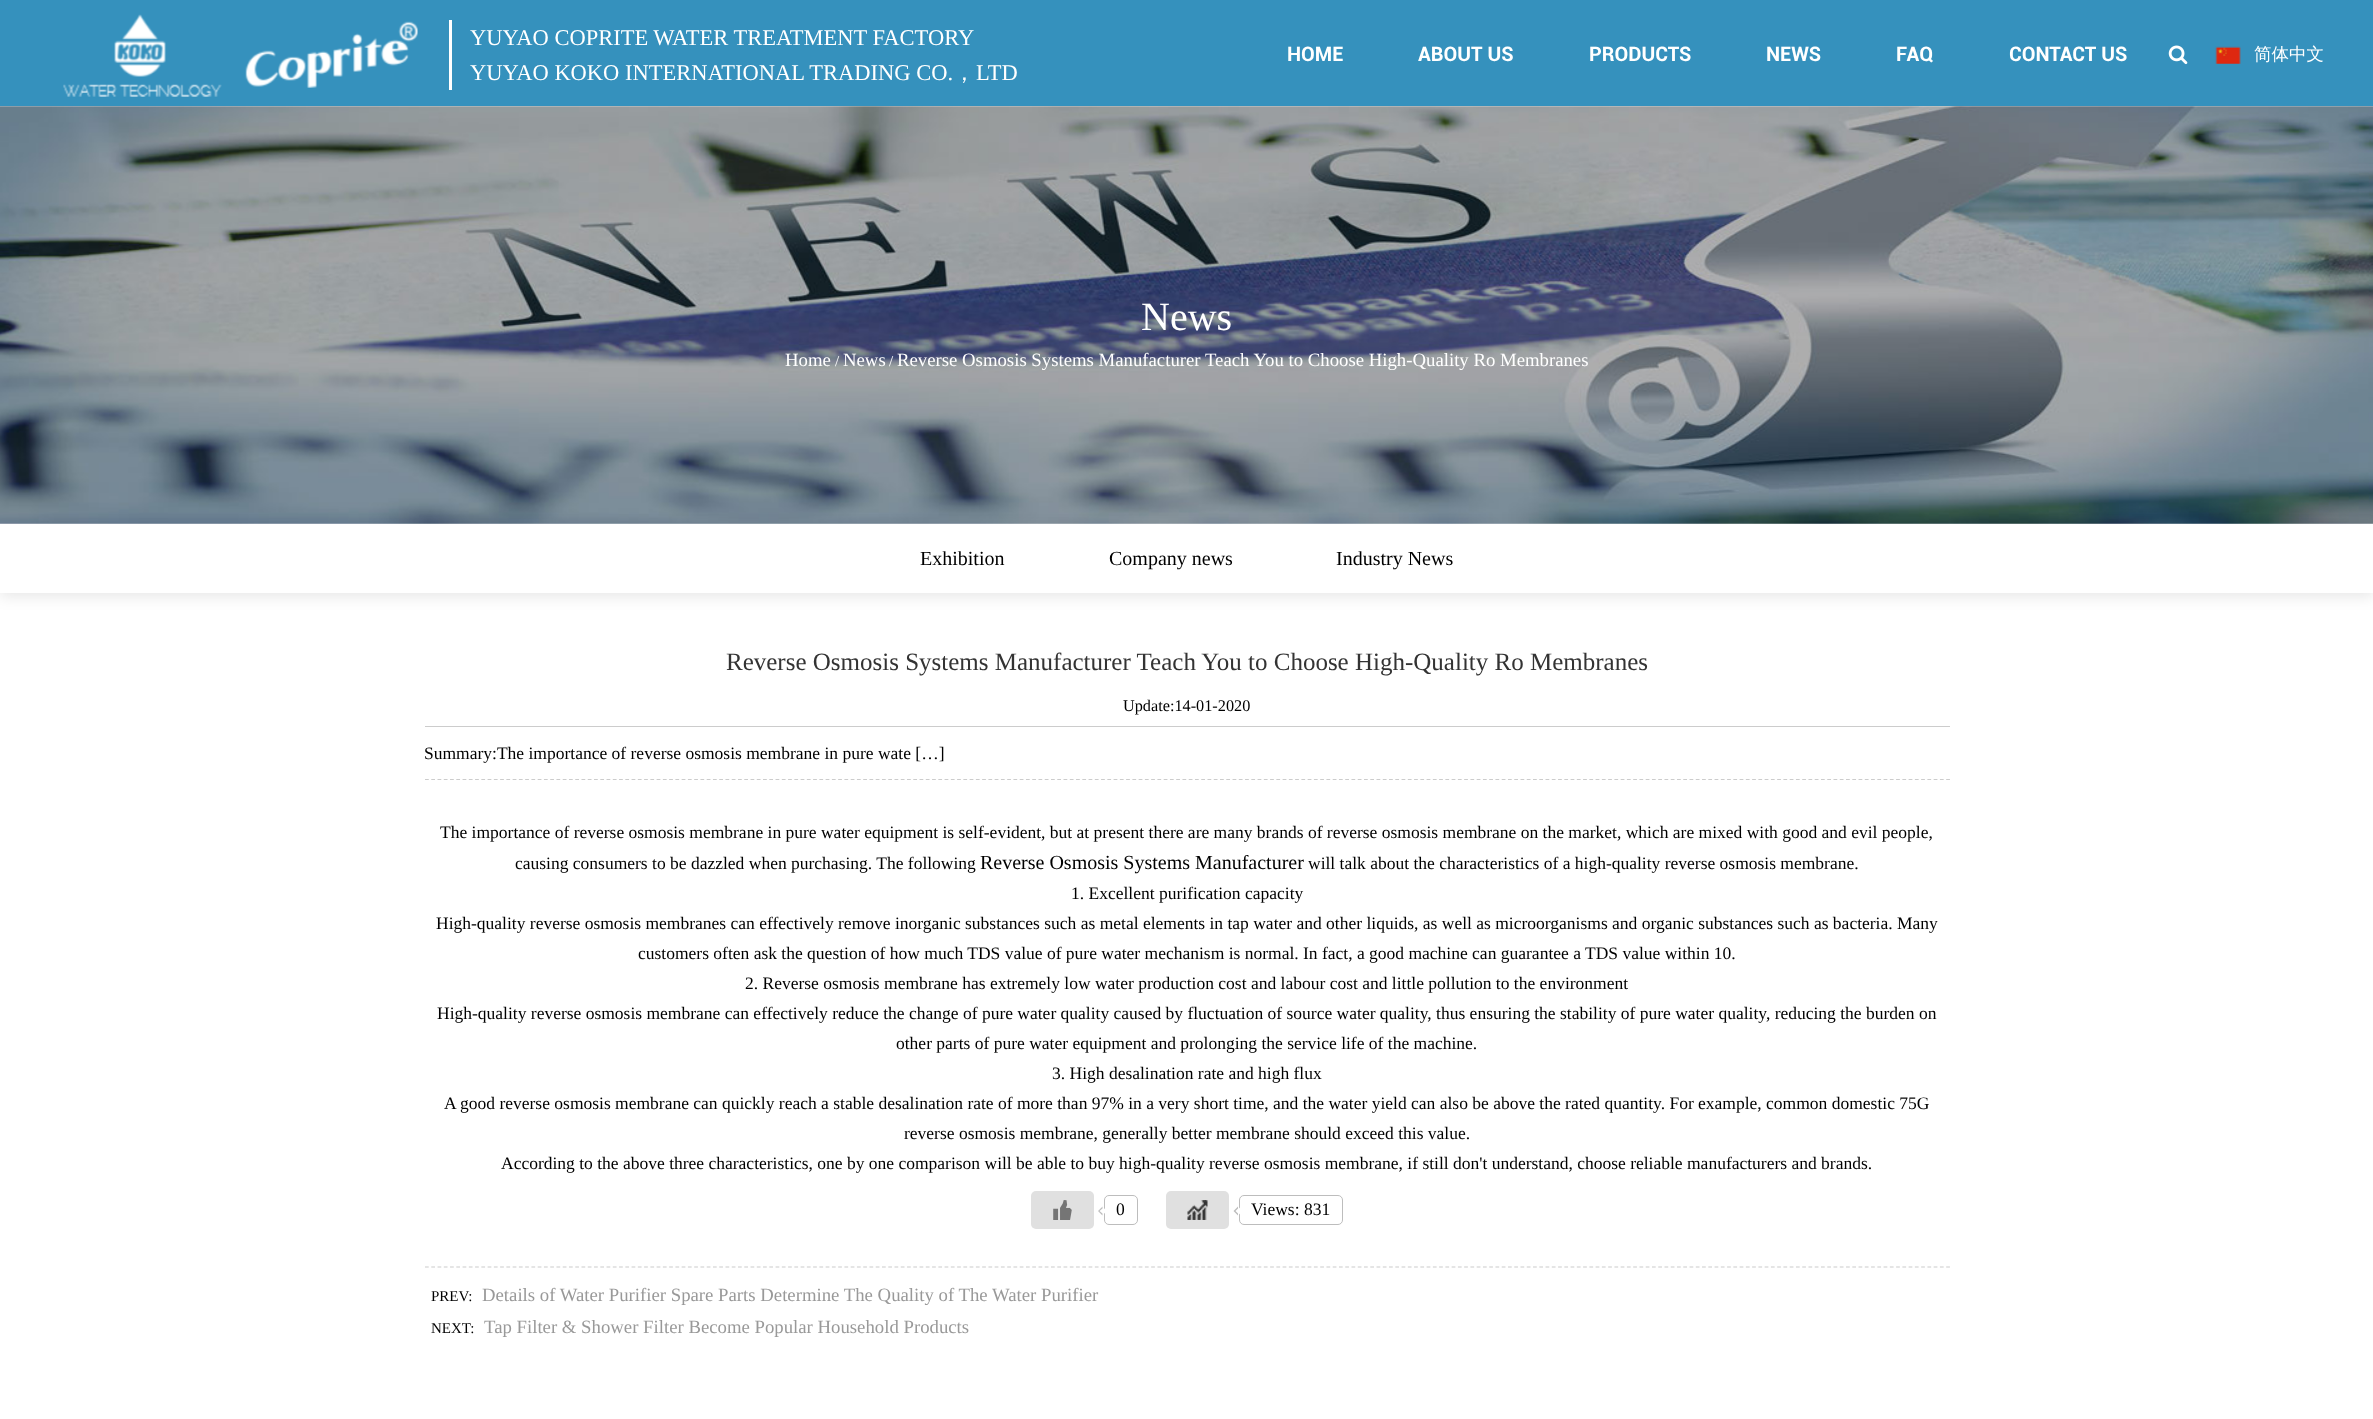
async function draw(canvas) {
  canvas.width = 2373
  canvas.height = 1419
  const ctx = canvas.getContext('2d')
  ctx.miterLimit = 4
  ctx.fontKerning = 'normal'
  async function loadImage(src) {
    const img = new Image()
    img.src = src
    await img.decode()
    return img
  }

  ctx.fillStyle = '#fff'
  ctx.fillRect(0, 0, 2373, 1419)
  ctx.fillStyle = '#3591bd'
  ctx.fillRect(0, 0, 2373, 106)
  ctx.drawImage(await loadImage('image0.png'), 63, 14, 159, 83)
  ctx.drawImage(await loadImage('image1.png'), 245, 21, 173, 67)
  ctx.fillStyle = '#fff'
  ctx.fillRect(449, 20, 3, 70)
  ctx.font = '22.5px Liberation Serif'
  ctx.fillText('YUYAO COPRITE WATER TREATMENT FACTORY', 470, 45)
  ctx.fillText('YUYAO KOKO INTERNATIONAL TRADING CO.', 470, 80)
  ctx.font = '500 22.5px WenQuanYi Zen Hei'
  ctx.fillText('，', 953, 80)
  ctx.font = '22.5px Liberation Serif'
  ctx.fillText('LTD', 976, 80)
  ctx.font = 'bold 20px Roboto'
  ctx.fillText('HOME', 1287, 61)
  ctx.fillText('ABOUT US', 1418, 61)
  ctx.fillText('PRODUCTS', 1589, 61)
  ctx.fillText('NEWS', 1766, 61)
  ctx.fillText('FAQ', 1896, 61)
  ctx.fillText('CONTACT US', 2009, 61)
  ctx.drawImage(await loadImage('image2.png'), 2168, 45, 20, 20)
  ctx.drawImage(await loadImage('image3.png'), 2215, 46, 26, 18)
  ctx.font = '500 17.5px WenQuanYi Zen Hei'
  ctx.fillText('简体中文', 2254, 60)
  ctx.drawImage(await loadImage('image4.png'), 0, 106, 2373, 418)
  ctx.font = '40px Liberation Serif'
  ctx.fillText('News', 1141, 330)
  ctx.font = '18.75px Liberation Serif'
  ctx.fillText('Home', 785, 366)
  ctx.font = '15px Liberation Serif'
  ctx.fillText('/', 835, 366)
  ctx.font = '18.75px Liberation Serif'
  ctx.fillText('News', 843, 366)
  ctx.font = '15px Liberation Serif'
  ctx.fillText('/', 889, 366)
  ctx.font = '18.75px Liberation Serif'
  ctx.fillText('Reverse Osmosis Systems Manufacturer Teach You to Choose High-Quality Ro Membranes', 897, 366)
  ctx.fillStyle = '#0000001a'
  ctx.filter = 'blur(7.5px)'
  ctx.beginPath()
  ctx.rect(0, 528, 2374, 68)
  ctx.fill()
  ctx.filter = 'none'
  ctx.fillStyle = '#fff'
  ctx.fillRect(0, 524, 2373, 69)
  ctx.font = '20px Liberation Serif'
  ctx.fillStyle = '#000'
  ctx.fillText('Exhibition', 920, 565)
  ctx.fillText('Company news', 1109, 565)
  ctx.fillText('Industry News', 1336, 565)
  ctx.font = '25px Liberation Serif'
  ctx.fillStyle = '#333'
  ctx.fillText('Reverse Osmosis Systems Manufacturer Teach You to Choose High-Quality Ro Membranes', 726, 670)
  ctx.fillStyle = '#ccc'
  ctx.fillRect(425, 726, 1525, 1)
  ctx.font = '16.25px Liberation Serif'
  ctx.fillStyle = '#000'
  ctx.fillText('Update:14-01-2020', 1123, 711)
  ctx.beginPath()
  ctx.moveTo(425, 779.5)
  ctx.lineTo(1950, 779.5)
  ctx.strokeStyle = '#ccc'
  ctx.lineWidth = 1.2
  ctx.setLineDash([3.75, 2.51])
  ctx.stroke()
  ctx.font = '17.5px Liberation Serif'
  ctx.fillText('Summary:The importance of reverse osmosis membrane in pure wate […]', 424, 759)
  ctx.beginPath()
  ctx.moveTo(425, 1267)
  ctx.lineTo(1950, 1267)
  ctx.stroke()
  ctx.fillText('The importance of reverse osmosis membrane in pure water equipment is self-evident, but at present there are many brands of reverse osmosis membrane on the market, which are mixed with good and evil people,', 440, 838)
  ctx.fillText('causing consumers to be dazzled when purchasing. The following', 515, 869)
  ctx.font = '20px Liberation Serif'
  ctx.fillText('Reverse Osmosis Systems Manufacturer', 980, 869)
  ctx.font = '17.5px Liberation Serif'
  ctx.fillText('will talk about the characteristics of a high-quality reverse osmosis membrane.', 1308, 869)
  ctx.fillText('1. Excellent purification capacity', 1071, 899)
  ctx.fillText('High-quality reverse osmosis membranes can effectively remove inorganic substances such as metal elements in tap water and other liquids, as well as microorganisms and organic substances such as bacteria. Many', 436, 929)
  ctx.fillText('customers often ask the question of how much TDS value of pure water mechanism is normal. In fact, a good machine can guarantee a TDS value within 10.', 638, 959)
  ctx.fillText('2. Reverse osmosis membrane has extremely low water production cost and labour cost and little pollution to the environment', 745, 989)
  ctx.fillText('High-quality reverse osmosis membrane can effectively reduce the change of pure water quality caused by fluctuation of source water quality, thus ensuring the stability of pure water quality, reducing the burden on', 437, 1019)
  ctx.fillText('other parts of pure water equipment and prolonging the service life of the machine.', 896, 1049)
  ctx.fillText('3. High desalination rate and high flux', 1052, 1079)
  ctx.fillText('A good reverse osmosis membrane can quickly reach a stable desalination rate of more than 97% in a very short time, and the water yield can also be above the rated quantity. For example, common domestic 75G', 444, 1109)
  ctx.fillText('reverse osmosis membrane, generally better membrane should exceed this value.', 904, 1139)
  ctx.fillText('According to the above three characteristics, one by one comparison will be able to buy high-quality reverse osmosis membrane, if still don\'t understand, choose reliable manufacturers and brands.', 501, 1169)
  ctx.fillStyle = '#e0e0e0'
  ctx.beginPath()
  ctx.roundRect(1031, 1191, 63, 38, 5)
  ctx.fill()
  ctx.drawImage(await loadImage('image5.png'), 1053, 1200, 19, 20)
  ctx.beginPath()
  ctx.roundRect(1104.5, 1195.5, 33, 29, 4.5)
  ctx.strokeStyle = '#bdbdbd'
  ctx.lineWidth = 1
  ctx.setLineDash([])
  ctx.stroke()
  ctx.fillStyle = '#fff'
  ctx.beginPath()
  ctx.moveTo(1102.5, 1206.5)
  ctx.lineTo(1106.5, 1211)
  ctx.lineTo(1102.5, 1215.5)
  ctx.lineTo(1098, 1211)
  ctx.closePath()
  ctx.fill()
  ctx.fillStyle = '#bdbdbd'
  ctx.beginPath()
  ctx.moveTo(1102.5, 1215.5)
  ctx.lineTo(1098, 1211)
  ctx.lineTo(1099.5, 1211)
  ctx.lineTo(1102.5, 1213.5)
  ctx.closePath()
  ctx.moveTo(1098, 1211)
  ctx.lineTo(1102.5, 1206.5)
  ctx.lineTo(1102.5, 1208.5)
  ctx.lineTo(1099.5, 1211)
  ctx.closePath()
  ctx.fill()
  ctx.fillStyle = '#000'
  ctx.fillText('0', 1116, 1215)
  ctx.fillStyle = '#e0e0e0'
  ctx.beginPath()
  ctx.roundRect(1166, 1191, 63, 38, 5)
  ctx.fill()
  ctx.drawImage(await loadImage('image6.png'), 1187, 1200, 21, 20)
  ctx.beginPath()
  ctx.roundRect(1239.5, 1195.5, 103, 29, 4.5)
  ctx.stroke()
  ctx.fillStyle = '#fff'
  ctx.beginPath()
  ctx.moveTo(1238, 1206.5)
  ctx.lineTo(1242.5, 1211)
  ctx.lineTo(1238, 1215.5)
  ctx.lineTo(1233.5, 1211)
  ctx.closePath()
  ctx.fill()
  ctx.fillStyle = '#bdbdbd'
  ctx.beginPath()
  ctx.moveTo(1238, 1215.5)
  ctx.lineTo(1233.5, 1211)
  ctx.lineTo(1235.5, 1211)
  ctx.lineTo(1238, 1213.5)
  ctx.closePath()
  ctx.moveTo(1233.5, 1211)
  ctx.lineTo(1238, 1206.5)
  ctx.lineTo(1238, 1208.5)
  ctx.lineTo(1235.5, 1211)
  ctx.closePath()
  ctx.fill()
  ctx.fillStyle = '#000'
  ctx.fillText('Views: 831', 1251, 1215)
  ctx.font = '15px Liberation Serif'
  ctx.fillText('PREV:', 431, 1301)
  ctx.font = '18.75px Liberation Serif'
  ctx.fillStyle = '#999'
  ctx.fillText('Details of Water Purifier Spare Parts Determine The Quality of The Water Purifier', 482, 1301)
  ctx.font = '15px Liberation Serif'
  ctx.fillStyle = '#000'
  ctx.fillText('NEXT:', 431, 1333)
  ctx.font = '18.75px Liberation Serif'
  ctx.fillStyle = '#999'
  ctx.fillText('Tap Filter & Shower Filter Become Popular Household Products', 484, 1333)
}

draw(document.querySelector('canvas'))
